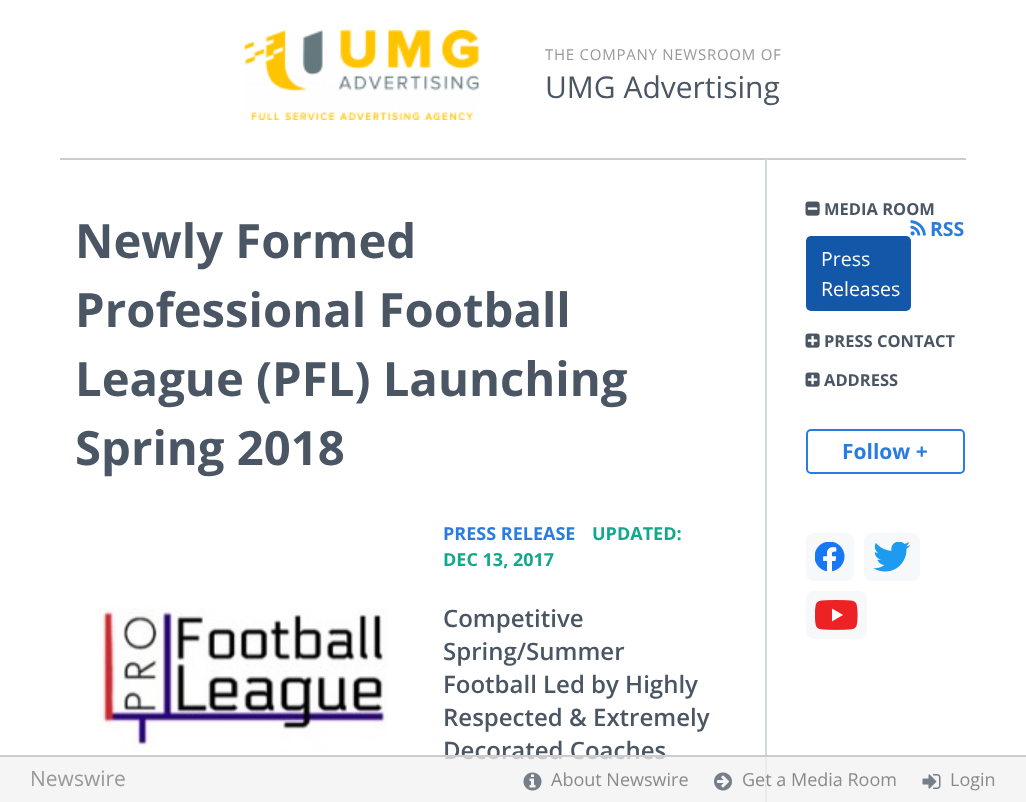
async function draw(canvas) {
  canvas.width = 1026
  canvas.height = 802
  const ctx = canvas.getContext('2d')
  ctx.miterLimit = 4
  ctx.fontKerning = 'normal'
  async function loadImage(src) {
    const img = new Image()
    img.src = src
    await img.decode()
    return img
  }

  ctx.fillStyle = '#fff'
  ctx.fillRect(0, 0, 1026, 802)
  ctx.fillStyle = '#ccc'
  ctx.fillRect(60, 158, 906, 2)
  ctx.drawImage(await loadImage('image0.png'), 244, 30, 235, 90)
  ctx.letterSpacing = '0.75px'
  ctx.font = '15px Open Sans'
  ctx.fillStyle = '#999'
  ctx.fillText('THE COMPANY NEWSROOM OF', 545, 60)
  ctx.letterSpacing = '0px'
  ctx.font = '30px Open Sans'
  ctx.fillStyle = '#4b5664'
  ctx.fillText('UMG Advertising', 545, 98)
  ctx.fillStyle = '#d3d8d9'
  ctx.fillRect(765, 159, 2, 643)
  ctx.font = 'bold 47.25px Open Sans'
  ctx.fillStyle = '#4b5664'
  ctx.fillText('Newly Formed', 75, 258)
  ctx.fillText('Professional Football', 75, 327)
  ctx.fillText('League (PFL) Launching', 75, 396)
  ctx.fillText('Spring 2018', 75, 465)
  ctx.font = 'bold 18px Open Sans'
  ctx.fillStyle = '#2a7ddf'
  ctx.fillText('PRESS RELEASE', 443, 540)
  ctx.fillStyle = '#13a88e'
  ctx.fillText('UPDATED:', 592, 540)
  ctx.fillText('DEC 13, 2017', 443, 566)
  ctx.drawImage(await loadImage('image1.png'), 98, 607, 290, 145)
  ctx.font = '600 24px Open Sans'
  ctx.fillStyle = '#4b5664'
  ctx.fillText('Competitive', 443, 627)
  ctx.fillText('Spring/Summer', 443, 660)
  ctx.fillText('Football Led by Highly', 443, 693)
  ctx.fillText('Respected & Extremely', 443, 726)
  ctx.fillText('Decorated Coaches', 443, 759)
  ctx.drawImage(await loadImage('image2.png'), 805, 201, 15, 15)
  ctx.font = 'bold 16.5px Open Sans'
  ctx.fillText('MEDIA ROOM', 824, 215)
  ctx.drawImage(await loadImage('image3.png'), 910, 220, 16, 16)
  ctx.font = 'bold 19.5px Open Sans'
  ctx.fillStyle = '#2a7ddf'
  ctx.fillText('RSS', 930, 236)
  ctx.fillStyle = '#1357a8'
  ctx.beginPath()
  ctx.roundRect(806, 236, 105, 75, 5)
  ctx.fill()
  ctx.font = '19.5px Open Sans'
  ctx.fillStyle = '#fff'
  ctx.fillText('Press', 821, 266)
  ctx.fillText('Releases', 821, 296)
  ctx.drawImage(await loadImage('image4.png'), 805, 333, 15, 15)
  ctx.font = 'bold 16.5px Open Sans'
  ctx.fillStyle = '#4b5664'
  ctx.fillText('PRESS CONTACT', 824, 347)
  ctx.drawImage(await loadImage('image4.png'), 805, 372, 15, 15)
  ctx.fillText('ADDRESS', 824, 386)
  ctx.beginPath()
  ctx.roundRect(807, 430, 157, 43, 4)
  ctx.strokeStyle = '#2a7ddf'
  ctx.lineWidth = 2
  ctx.stroke()
  ctx.font = 'bold 21px Open Sans'
  ctx.fillStyle = '#2a7ddf'
  ctx.fillText('Follow +', 842, 459)
  ctx.fillStyle = '#f7f8fa'
  ctx.beginPath()
  ctx.roundRect(806, 533, 48, 48, 8)
  ctx.fill()
  ctx.drawImage(await loadImage('image5.png'), 815, 542, 30, 30)
  ctx.beginPath()
  ctx.roundRect(864, 533, 56, 48, 8)
  ctx.fill()
  ctx.drawImage(await loadImage('image6.png'), 873, 542, 37, 30)
  ctx.beginPath()
  ctx.roundRect(806, 591, 61, 48, 8)
  ctx.fill()
  ctx.drawImage(await loadImage('image7.png'), 815, 600, 43, 30)
  ctx.fillStyle = '#f1f1f1bf'
  ctx.fillRect(0, 757, 1026, 45)
  ctx.fillStyle = '#ccc'
  ctx.fillRect(0, 755, 1026, 2)
  ctx.font = '21px Open Sans'
  ctx.fillStyle = '#999'
  ctx.fillText('Newswire', 30, 786)
  ctx.drawImage(await loadImage('image8.png'), 523, 772, 19, 19)
  ctx.font = '18px Open Sans'
  ctx.fillStyle = '#8a8a8a'
  ctx.fillText('About Newswire', 551, 786)
  ctx.drawImage(await loadImage('image9.png'), 714, 772, 18, 19)
  ctx.fillText('Get a Media Room', 742, 786)
  ctx.drawImage(await loadImage('image10.png'), 922, 774, 19, 15)
  ctx.fillText('Login', 950, 786)
}

draw(document.querySelector('canvas'))
